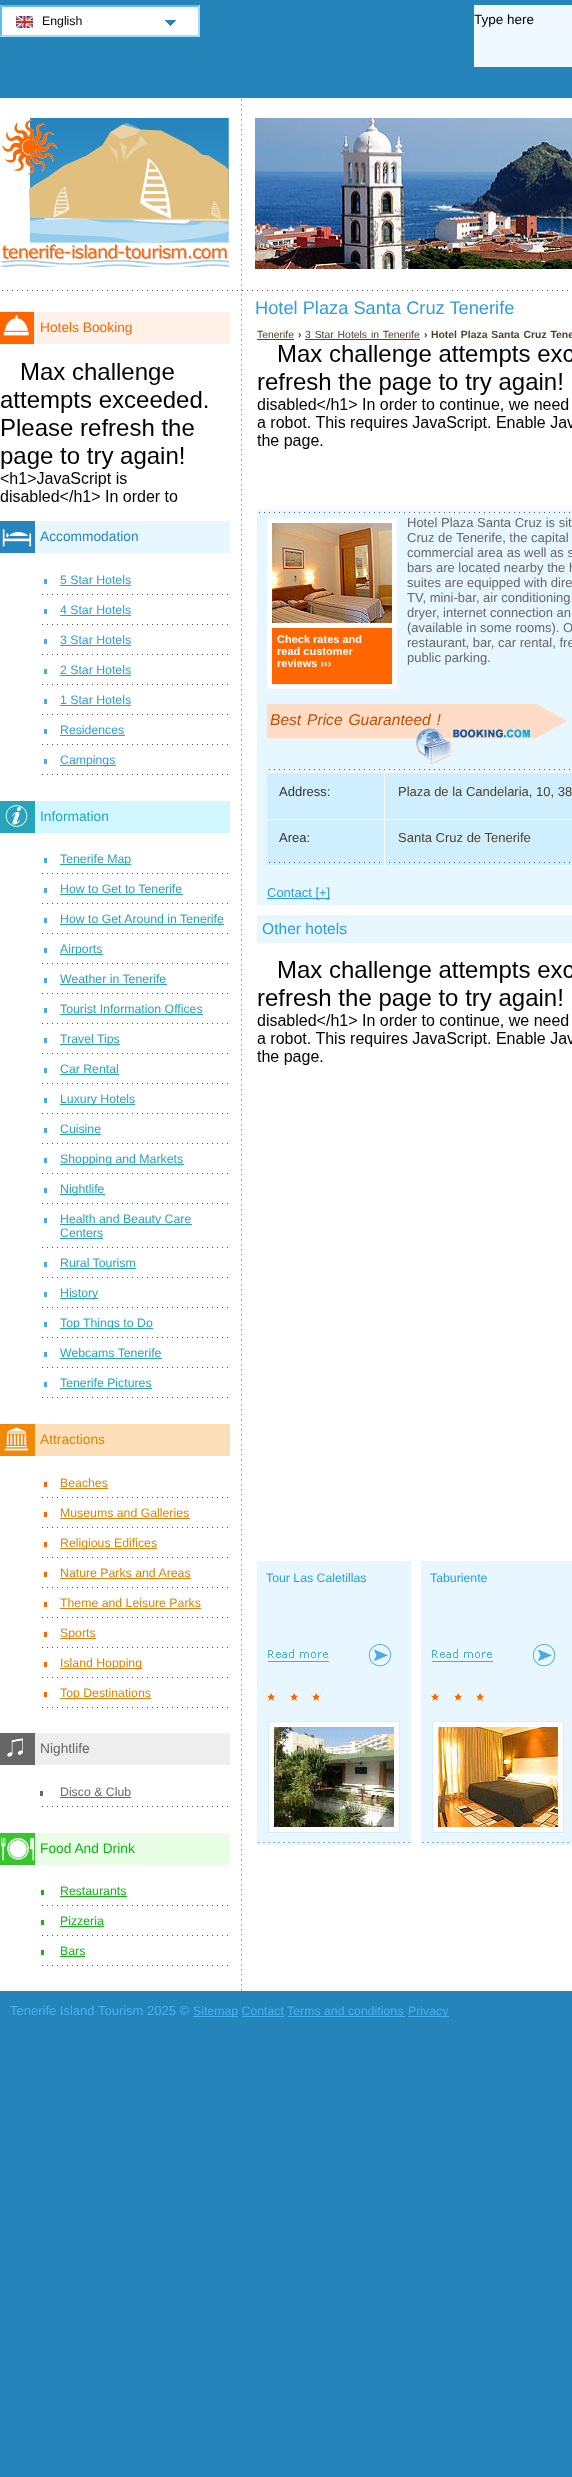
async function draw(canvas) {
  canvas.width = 572
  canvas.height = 2477
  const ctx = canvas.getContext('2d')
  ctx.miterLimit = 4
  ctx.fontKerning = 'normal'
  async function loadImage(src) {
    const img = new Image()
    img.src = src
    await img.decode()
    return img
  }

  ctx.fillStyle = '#2585bb'
  ctx.fillRect(0, 0, 572, 2477)
  ctx.fillStyle = '#fff'
  ctx.fillRect(0, 5, 200, 32)
  ctx.drawImage(await loadImage('image0.png'), 165, 20, 11, 6)
  ctx.drawImage(await loadImage('image1.png'), 16, 16, 17, 12)
  ctx.fillStyle = '#5bbdf2'
  ctx.beginPath()
  ctx.moveTo(0, 5)
  ctx.lineTo(200, 5)
  ctx.lineTo(198, 7)
  ctx.lineTo(2, 7)
  ctx.closePath()
  ctx.fill()
  ctx.fillStyle = '#9fddff'
  ctx.beginPath()
  ctx.moveTo(200, 5)
  ctx.lineTo(200, 37)
  ctx.lineTo(198, 35)
  ctx.lineTo(198, 7)
  ctx.closePath()
  ctx.fill()
  ctx.beginPath()
  ctx.moveTo(200, 37)
  ctx.lineTo(0, 37)
  ctx.lineTo(2, 35)
  ctx.lineTo(198, 35)
  ctx.closePath()
  ctx.fill()
  ctx.fillStyle = '#5bbdf2'
  ctx.beginPath()
  ctx.moveTo(0, 37)
  ctx.lineTo(0, 5)
  ctx.lineTo(2, 7)
  ctx.lineTo(2, 35)
  ctx.closePath()
  ctx.fill()
  ctx.font = '12.3px Liberation Sans'
  ctx.fillStyle = '#000'
  ctx.fillText('English', 42, 25)
  ctx.fillStyle = '#eff9ff'
  ctx.fillRect(474, 5, 98, 62)
  ctx.font = '13.5px Liberation Sans'
  ctx.fillStyle = '#000'
  ctx.fillText('Type here', 474, 24)
  ctx.fillStyle = '#fff'
  ctx.fillRect(0, 98, 572, 1893)
  ctx.drawImage(await loadImage('image2.png'), 241, 99, 1, 1892)
  ctx.drawImage(await loadImage('image3.png'), 2, 290, 566, 1)
  ctx.drawImage(await loadImage('image4.png'), 0, 118, 229, 149)
  ctx.drawImage(await loadImage('image5.png'), 255, 118, 317, 151)
  ctx.font = '18.25px Liberation Sans'
  ctx.fillStyle = '#2c9fe1'
  ctx.fillText('Hotel Plaza Santa Cruz Tenerife', 255, 314)
  ctx.fillStyle = '#fef1e8'
  ctx.fillRect(34, 312, 196, 32)
  ctx.drawImage(await loadImage('image6.png'), 0, 312, 34, 32)
  ctx.font = '13.75px Liberation Sans'
  ctx.fillStyle = '#f60'
  ctx.fillText('Hotels Booking', 40, 332)
  ctx.drawImage(await loadImage('image7.png'), 0, 363, 208, 139)
  ctx.fillStyle = '#e7f6ff'
  ctx.fillRect(35, 521, 195, 32)
  ctx.drawImage(await loadImage('image8.png'), 0, 521, 35, 32)
  ctx.fillStyle = '#2585bc'
  ctx.fillText('Accommodation', 40, 541)
  ctx.drawImage(await loadImage('image9.png'), 42, 594, 186, 1)
  ctx.fillStyle = '#4cace2'
  ctx.fillRect(44, 579, 3, 5)
  ctx.font = '12.3px Liberation Sans'
  ctx.fillStyle = '#2c9fe1'
  ctx.fillText('5 Star Hotels', 60, 584)
  ctx.fillRect(60, 585, 71, 1)
  ctx.drawImage(await loadImage('image9.png'), 42, 624, 186, 1)
  ctx.fillStyle = '#4cace2'
  ctx.fillRect(44, 609, 3, 5)
  ctx.fillStyle = '#2c9fe1'
  ctx.fillText('4 Star Hotels', 60, 614)
  ctx.fillRect(60, 615, 71, 1)
  ctx.drawImage(await loadImage('image9.png'), 42, 654, 186, 1)
  ctx.fillStyle = '#4cace2'
  ctx.fillRect(44, 639, 3, 5)
  ctx.fillStyle = '#2c9fe1'
  ctx.fillText('3 Star Hotels', 60, 644)
  ctx.fillRect(60, 645, 71, 1)
  ctx.drawImage(await loadImage('image9.png'), 42, 684, 186, 1)
  ctx.fillStyle = '#4cace2'
  ctx.fillRect(44, 669, 3, 5)
  ctx.fillStyle = '#2c9fe1'
  ctx.fillText('2 Star Hotels', 60, 674)
  ctx.fillRect(60, 675, 71, 1)
  ctx.drawImage(await loadImage('image9.png'), 42, 714, 186, 1)
  ctx.fillStyle = '#4cace2'
  ctx.fillRect(44, 699, 3, 5)
  ctx.fillStyle = '#2c9fe1'
  ctx.fillText('1 Star Hotels', 60, 704)
  ctx.fillRect(60, 705, 71, 1)
  ctx.drawImage(await loadImage('image9.png'), 42, 744, 186, 1)
  ctx.fillStyle = '#4cace2'
  ctx.fillRect(44, 729, 3, 5)
  ctx.fillStyle = '#2c9fe1'
  ctx.fillText('Residences', 60, 734)
  ctx.fillRect(60, 735, 65, 1)
  ctx.drawImage(await loadImage('image9.png'), 42, 774, 186, 1)
  ctx.fillStyle = '#4cace2'
  ctx.fillRect(44, 759, 3, 5)
  ctx.fillStyle = '#2c9fe1'
  ctx.fillRect(60, 765, 56, 1)
  ctx.fillText('Campings', 60, 764)
  ctx.fillStyle = '#d1f7fe'
  ctx.fillRect(35, 801, 195, 32)
  ctx.drawImage(await loadImage('image10.png'), 0, 801, 35, 32)
  ctx.font = '13.75px Liberation Sans'
  ctx.fillStyle = '#25a5bc'
  ctx.fillText('Information', 40, 821)
  ctx.drawImage(await loadImage('image9.png'), 42, 873, 186, 1)
  ctx.fillStyle = '#4cace2'
  ctx.fillRect(44, 858, 3, 5)
  ctx.fillStyle = '#25a5bc'
  ctx.fillRect(60, 864, 71, 1)
  ctx.font = '12.3px Liberation Sans'
  ctx.fillText('Tenerife Map', 60, 863)
  ctx.drawImage(await loadImage('image9.png'), 42, 903, 186, 1)
  ctx.fillStyle = '#4cace2'
  ctx.fillRect(44, 888, 3, 5)
  ctx.fillStyle = '#25a5bc'
  ctx.fillText('How to Get to Tenerife', 60, 893)
  ctx.fillRect(60, 894, 123, 1)
  ctx.drawImage(await loadImage('image9.png'), 42, 933, 186, 1)
  ctx.fillStyle = '#4cace2'
  ctx.fillRect(44, 918, 3, 5)
  ctx.fillStyle = '#25a5bc'
  ctx.fillText('How to Get Around in Tenerife', 60, 923)
  ctx.fillRect(60, 924, 164, 1)
  ctx.drawImage(await loadImage('image9.png'), 42, 963, 186, 1)
  ctx.fillStyle = '#4cace2'
  ctx.fillRect(44, 948, 3, 5)
  ctx.fillStyle = '#25a5bc'
  ctx.fillRect(60, 954, 43, 1)
  ctx.fillText('Airports', 60, 953)
  ctx.drawImage(await loadImage('image9.png'), 42, 993, 186, 1)
  ctx.fillStyle = '#4cace2'
  ctx.fillRect(44, 978, 3, 5)
  ctx.fillStyle = '#25a5bc'
  ctx.fillText('Weather in Tenerife', 60, 983)
  ctx.fillRect(60, 984, 107, 1)
  ctx.drawImage(await loadImage('image9.png'), 42, 1023, 186, 1)
  ctx.fillStyle = '#4cace2'
  ctx.fillRect(44, 1008, 3, 5)
  ctx.fillStyle = '#25a5bc'
  ctx.fillText('Tourist Information Offices', 60, 1013)
  ctx.fillRect(60, 1014, 143, 1)
  ctx.drawImage(await loadImage('image9.png'), 42, 1053, 186, 1)
  ctx.fillStyle = '#4cace2'
  ctx.fillRect(44, 1038, 3, 5)
  ctx.fillStyle = '#25a5bc'
  ctx.fillRect(60, 1044, 60, 1)
  ctx.fillText('Travel Tips', 60, 1043)
  ctx.drawImage(await loadImage('image9.png'), 42, 1083, 186, 1)
  ctx.fillStyle = '#4cace2'
  ctx.fillRect(44, 1068, 3, 5)
  ctx.fillStyle = '#25a5bc'
  ctx.fillText('Car Rental', 60, 1073)
  ctx.fillRect(60, 1074, 59, 1)
  ctx.drawImage(await loadImage('image9.png'), 42, 1113, 186, 1)
  ctx.fillStyle = '#4cace2'
  ctx.fillRect(44, 1098, 3, 5)
  ctx.fillStyle = '#25a5bc'
  ctx.fillRect(60, 1104, 75, 1)
  ctx.fillText('Luxury Hotels', 60, 1103)
  ctx.drawImage(await loadImage('image9.png'), 42, 1143, 186, 1)
  ctx.fillStyle = '#4cace2'
  ctx.fillRect(44, 1128, 3, 5)
  ctx.fillStyle = '#25a5bc'
  ctx.fillText('Cuisine', 60, 1133)
  ctx.fillRect(60, 1134, 41, 1)
  ctx.drawImage(await loadImage('image9.png'), 42, 1173, 186, 1)
  ctx.fillStyle = '#4cace2'
  ctx.fillRect(44, 1158, 3, 5)
  ctx.fillStyle = '#25a5bc'
  ctx.fillRect(60, 1164, 124, 1)
  ctx.fillText('Shopping and Markets', 60, 1163)
  ctx.drawImage(await loadImage('image9.png'), 42, 1203, 186, 1)
  ctx.fillStyle = '#4cace2'
  ctx.fillRect(44, 1188, 3, 5)
  ctx.fillStyle = '#25a5bc'
  ctx.fillRect(60, 1194, 45, 1)
  ctx.fillText('Nightlife', 60, 1193)
  ctx.drawImage(await loadImage('image9.png'), 42, 1247, 186, 1)
  ctx.fillStyle = '#4cace2'
  ctx.fillRect(44, 1218, 3, 5)
  ctx.fillStyle = '#25a5bc'
  ctx.fillRect(60, 1224, 132, 1)
  ctx.fillText('Health and Beauty Care', 60, 1223)
  ctx.fillText('Centers', 60, 1237)
  ctx.fillRect(60, 1238, 43, 1)
  ctx.drawImage(await loadImage('image9.png'), 42, 1277, 186, 1)
  ctx.fillStyle = '#4cace2'
  ctx.fillRect(44, 1262, 3, 5)
  ctx.fillStyle = '#25a5bc'
  ctx.fillText('Rural Tourism', 60, 1267)
  ctx.fillRect(60, 1268, 76, 1)
  ctx.drawImage(await loadImage('image9.png'), 42, 1307, 186, 1)
  ctx.fillStyle = '#4cace2'
  ctx.fillRect(44, 1292, 3, 5)
  ctx.fillStyle = '#25a5bc'
  ctx.fillRect(60, 1298, 38, 1)
  ctx.fillText('History', 60, 1297)
  ctx.drawImage(await loadImage('image9.png'), 42, 1337, 186, 1)
  ctx.fillStyle = '#4cace2'
  ctx.fillRect(44, 1322, 3, 5)
  ctx.fillStyle = '#25a5bc'
  ctx.fillRect(60, 1328, 93, 1)
  ctx.fillText('Top Things to Do', 60, 1327)
  ctx.drawImage(await loadImage('image9.png'), 42, 1367, 186, 1)
  ctx.fillStyle = '#4cace2'
  ctx.fillRect(44, 1352, 3, 5)
  ctx.fillStyle = '#25a5bc'
  ctx.fillText('Webcams Tenerife', 60, 1357)
  ctx.fillRect(60, 1358, 102, 1)
  ctx.drawImage(await loadImage('image9.png'), 42, 1397, 186, 1)
  ctx.fillStyle = '#4cace2'
  ctx.fillRect(44, 1382, 3, 5)
  ctx.fillStyle = '#25a5bc'
  ctx.fillText('Tenerife Pictures', 60, 1387)
  ctx.fillRect(60, 1388, 92, 1)
  ctx.fillStyle = '#fde0ba'
  ctx.fillRect(35, 1424, 195, 32)
  ctx.drawImage(await loadImage('image11.png'), 0, 1424, 35, 32)
  ctx.font = '13.75px Liberation Sans'
  ctx.fillStyle = '#e18003'
  ctx.fillText('Attractions', 40, 1444)
  ctx.drawImage(await loadImage('image9.png'), 42, 1497, 186, 1)
  ctx.fillStyle = '#f60'
  ctx.fillRect(44, 1482, 3, 5)
  ctx.font = '12.3px Liberation Sans'
  ctx.fillStyle = '#e18003'
  ctx.fillText('Beaches', 60, 1487)
  ctx.fillRect(60, 1488, 48, 1)
  ctx.drawImage(await loadImage('image9.png'), 42, 1527, 186, 1)
  ctx.fillStyle = '#f60'
  ctx.fillRect(44, 1512, 3, 5)
  ctx.fillStyle = '#e18003'
  ctx.fillText('Museums and Galleries', 60, 1517)
  ctx.fillRect(60, 1518, 130, 1)
  ctx.drawImage(await loadImage('image9.png'), 42, 1557, 186, 1)
  ctx.fillStyle = '#f60'
  ctx.fillRect(44, 1542, 3, 5)
  ctx.fillStyle = '#e18003'
  ctx.fillRect(60, 1548, 97, 1)
  ctx.fillText('Religious Edifices', 60, 1547)
  ctx.drawImage(await loadImage('image9.png'), 42, 1587, 186, 1)
  ctx.fillStyle = '#f60'
  ctx.fillRect(44, 1572, 3, 5)
  ctx.fillStyle = '#e18003'
  ctx.fillText('Nature Parks and Areas', 60, 1577)
  ctx.fillRect(60, 1578, 131, 1)
  ctx.drawImage(await loadImage('image9.png'), 42, 1617, 186, 1)
  ctx.fillStyle = '#f60'
  ctx.fillRect(44, 1602, 3, 5)
  ctx.fillStyle = '#e18003'
  ctx.fillText('Theme and Leisure Parks', 60, 1607)
  ctx.fillRect(60, 1608, 141, 1)
  ctx.drawImage(await loadImage('image9.png'), 42, 1647, 186, 1)
  ctx.fillStyle = '#f60'
  ctx.fillRect(44, 1632, 3, 5)
  ctx.fillStyle = '#e18003'
  ctx.fillRect(60, 1638, 36, 1)
  ctx.fillText('Sports', 60, 1637)
  ctx.drawImage(await loadImage('image9.png'), 42, 1677, 186, 1)
  ctx.fillStyle = '#f60'
  ctx.fillRect(44, 1662, 3, 5)
  ctx.fillStyle = '#e18003'
  ctx.fillRect(60, 1668, 82, 1)
  ctx.fillText('Island Hopping', 60, 1667)
  ctx.drawImage(await loadImage('image9.png'), 42, 1707, 186, 1)
  ctx.fillStyle = '#f60'
  ctx.fillRect(44, 1692, 3, 5)
  ctx.fillStyle = '#e18003'
  ctx.fillRect(60, 1698, 91, 1)
  ctx.fillText('Top Destinations', 60, 1697)
  ctx.fillStyle = '#eee'
  ctx.fillRect(35, 1733, 195, 32)
  ctx.drawImage(await loadImage('image12.png'), 0, 1733, 35, 32)
  ctx.font = '13.75px Liberation Sans'
  ctx.fillStyle = '#666'
  ctx.fillText('Nightlife', 40, 1753)
  ctx.drawImage(await loadImage('image9.png'), 42, 1806, 186, 1)
  ctx.fillRect(40, 1791, 3, 5)
  ctx.font = '12.3px Liberation Sans'
  ctx.fillText('Disco & Club', 60, 1796)
  ctx.fillRect(60, 1797, 71, 1)
  ctx.fillStyle = '#e8ffe6'
  ctx.fillRect(35, 1833, 195, 32)
  ctx.drawImage(await loadImage('image13.png'), 0, 1833, 35, 32)
  ctx.font = '13.75px Liberation Sans'
  ctx.fillStyle = '#0bb911'
  ctx.fillText('Food And Drink', 40, 1853)
  ctx.drawImage(await loadImage('image9.png'), 42, 1905, 186, 1)
  ctx.fillStyle = '#0cb911'
  ctx.fillRect(41, 1890, 3, 5)
  ctx.font = '12.3px Liberation Sans'
  ctx.fillStyle = '#0bb911'
  ctx.fillText('Restaurants', 60, 1895)
  ctx.fillRect(60, 1896, 67, 1)
  ctx.drawImage(await loadImage('image9.png'), 42, 1935, 186, 1)
  ctx.fillStyle = '#0cb911'
  ctx.fillRect(41, 1920, 3, 5)
  ctx.fillStyle = '#0bb911'
  ctx.fillText('Pizzeria', 60, 1925)
  ctx.fillRect(60, 1926, 44, 1)
  ctx.drawImage(await loadImage('image9.png'), 42, 1965, 186, 1)
  ctx.fillStyle = '#0cb911'
  ctx.fillRect(41, 1950, 3, 5)
  ctx.fillStyle = '#0bb911'
  ctx.fillText('Bars', 60, 1955)
  ctx.fillRect(60, 1956, 25, 1)
  ctx.font = '10.4px Liberation Sans'
  ctx.fillStyle = '#4f412c'
  ctx.fillText('Tenerife', 257, 338)
  ctx.fillRect(257, 339, 37, 1)
  ctx.font = 'bold 10.4px Liberation Sans'
  ctx.fillText('›', 298, 338)
  ctx.wordSpacing = '1px'
  ctx.font = '10.4px Liberation Sans'
  ctx.fillText('3 Star Hotels', 305, 338)
  ctx.fillRect(305, 339, 115, 1)
  ctx.fillText('in Tenerife', 371, 338)
  ctx.wordSpacing = '0px'
  ctx.font = 'bold 10.4px Liberation Sans'
  ctx.fillText('›', 424, 338)
  ctx.wordSpacing = '1px'
  ctx.fillText('Hotel Plaza Santa Cruz Tene', 431, 338)
  ctx.drawImage(await loadImage('image14.png'), 257, 345, 315, 104)
  ctx.fillStyle = '#e7f7ff'
  ctx.fillRect(257, 510, 315, 395)
  ctx.drawImage(await loadImage('image15.png'), 259, 512, 311, 1)
  ctx.wordSpacing = '0px'
  ctx.font = '13px Liberation Sans'
  ctx.fillStyle = '#666'
  ctx.fillText('Hotel Plaza Santa Cruz is sit', 407, 527)
  ctx.fillText('Cruz de Tenerife, the capital', 407, 542)
  ctx.fillText('commercial area as well as s', 407, 557)
  ctx.fillText('bars are located nearby the h', 407, 572)
  ctx.fillText('suites are equipped with dire', 407, 587)
  ctx.fillText('TV, mini-bar, air conditioning', 407, 602)
  ctx.fillText('dryer, internet connection an', 407, 617)
  ctx.fillText('(available in some rooms). O', 407, 632)
  ctx.fillStyle = '#fff'
  ctx.fillRect(267, 518, 130, 110)
  ctx.drawImage(await loadImage('image16.png'), 272, 523, 120, 100)
  ctx.fillStyle = '#f60'
  ctx.fillRect(272, 628, 120, 56)
  ctx.fillStyle = '#fff'
  ctx.fillRect(392, 628, 5, 61)
  ctx.fillRect(267, 684, 130, 5)
  ctx.fillRect(267, 628, 5, 61)
  ctx.font = 'bold 11px Liberation Sans'
  ctx.fillText('Check rates and', 277, 643)
  ctx.fillText('read customer', 277, 655)
  ctx.fillText('reviews ›››', 277, 667)
  ctx.font = '13px Liberation Sans'
  ctx.fillStyle = '#666'
  ctx.fillText('restaurant, bar, car rental, fre', 407, 647)
  ctx.fillText('public parking.', 407, 662)
  ctx.drawImage(await loadImage('image17.png'), 269, 769, 301, 1)
  ctx.drawImage(await loadImage('image18.png'), 267, 704, 299, 60)
  ctx.wordSpacing = '1.5px'
  ctx.font = 'italic 15.6px Liberation Sans'
  ctx.fillStyle = '#c34f02'
  ctx.fillText('Best Price Guaranteed !', 270, 725)
  ctx.fillStyle = '#cfefff'
  ctx.fillRect(267, 773, 305, 92)
  ctx.drawImage(await loadImage('image19.png'), 269, 862, 301, 1)
  ctx.fillStyle = '#fff'
  ctx.fillRect(267, 772, 305, 1)
  ctx.fillRect(267, 819, 305, 1)
  ctx.fillRect(384, 772, 1, 93)
  ctx.wordSpacing = '0px'
  ctx.font = '13px Liberation Sans'
  ctx.fillStyle = '#333'
  ctx.fillText('Address:', 279, 796)
  ctx.fillStyle = '#4f412c'
  ctx.fillText('Plaza de la Candelaria, 10, 38', 398, 796)
  ctx.fillStyle = '#333'
  ctx.fillText('Area:', 279, 842)
  ctx.fillStyle = '#4f412c'
  ctx.fillText('Santa Cruz de Tenerife', 398, 842)
  ctx.fillStyle = '#2c9fe1'
  ctx.fillRect(267, 898, 63, 1)
  ctx.fillText('Contact [+]', 267, 897)
  ctx.fillStyle = '#e7f6ff'
  ctx.fillRect(257, 915, 315, 28)
  ctx.font = '15.6px Liberation Sans'
  ctx.fillStyle = '#2c9fe1'
  ctx.fillText('Other hotels', 262, 934)
  ctx.drawImage(await loadImage('image14.png'), 257, 961, 315, 104)
  ctx.fillStyle = '#e7f6ff'
  ctx.fillRect(257, 1561, 154, 284)
  ctx.drawImage(await loadImage('image20.png'), 258, 1842, 152, 1)
  ctx.drawImage(await loadImage('image21.png'), 265, 1691, 57, 12)
  ctx.drawImage(await loadImage('image22.png'), 268, 1644, 124, 23)
  ctx.font = '12.3px Liberation Sans'
  ctx.fillStyle = '#2c9fe1'
  ctx.fillText('Tour Las Caletillas', 266, 1582)
  ctx.fillStyle = '#fff'
  ctx.beginPath()
  ctx.rect(268.5, 1721.5, 131, 111)
  ctx.fill()
  ctx.strokeStyle = '#d5eefd'
  ctx.stroke()
  ctx.drawImage(await loadImage('image23.png'), 274, 1727, 120, 100)
  ctx.fillStyle = '#e7f6ff'
  ctx.fillRect(421, 1561, 151, 284)
  ctx.drawImage(await loadImage('image24.png'), 422, 1842, 147, 1)
  ctx.drawImage(await loadImage('image21.png'), 429, 1691, 57, 12)
  ctx.drawImage(await loadImage('image22.png'), 432, 1644, 124, 23)
  ctx.fillStyle = '#2c9fe1'
  ctx.fillText('Taburiente', 430, 1582)
  ctx.fillStyle = '#fff'
  ctx.beginPath()
  ctx.rect(432.5, 1721.5, 131, 111)
  ctx.fill()
  ctx.stroke()
  ctx.drawImage(await loadImage('image25.png'), 438, 1727, 120, 100)
  ctx.font = '13px Liberation Sans'
  ctx.fillStyle = '#49b2ed'
  ctx.fillText('Tenerife Island Tourism 2025 ©', 10, 2015)
  ctx.fillRect(193, 2016, 45, 1)
  ctx.font = '12.3px Liberation Sans'
  ctx.fillText('Sitemap Contact Terms and conditions', 193, 2015)
  ctx.fillRect(408, 2016, 41, 1)
  ctx.fillText('Privacy', 408, 2015)
  ctx.fillRect(242, 2016, 42, 1)
  ctx.fillRect(288, 2016, 117, 1)
}

draw(document.querySelector('canvas'))
